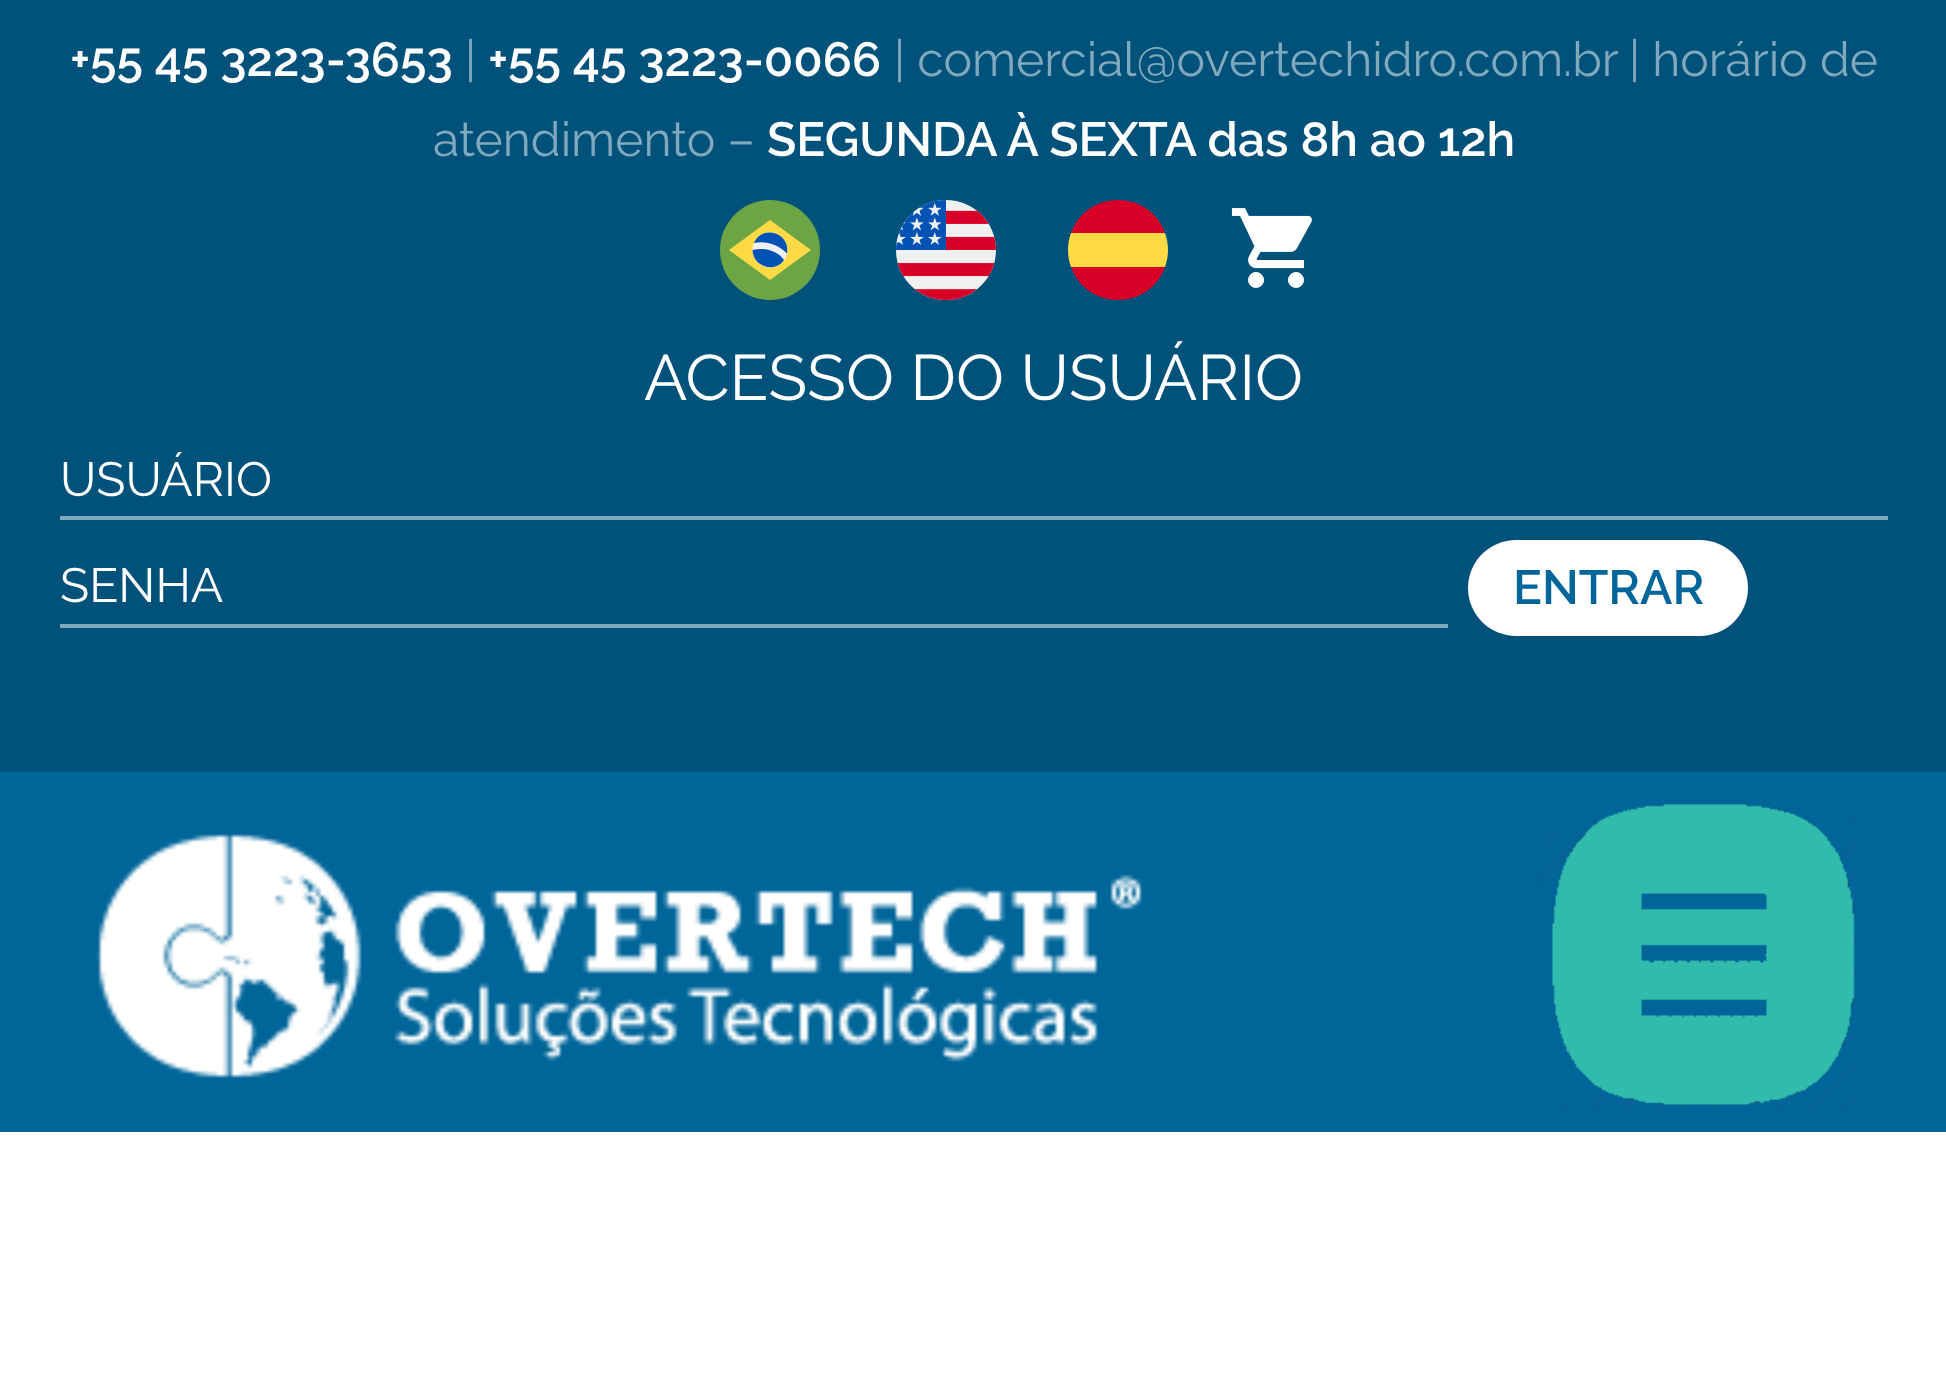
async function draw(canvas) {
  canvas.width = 1946
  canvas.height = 1393
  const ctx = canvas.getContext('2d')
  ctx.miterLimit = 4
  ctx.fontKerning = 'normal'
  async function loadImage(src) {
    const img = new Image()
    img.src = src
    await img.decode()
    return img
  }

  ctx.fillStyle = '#fff'
  ctx.fillRect(0, 0, 1946, 1393)
  ctx.fillStyle = '#00527b'
  ctx.fillRect(0, 0, 1946, 772)
  ctx.font = '600 48px Raleway'
  ctx.fillStyle = '#fff'
  ctx.fillText('+55 45 3223-3653', 70, 76)
  ctx.font = '48px Raleway'
  ctx.fillStyle = '#80a9bd'
  ctx.fillText('|', 465, 76)
  ctx.font = '600 48px Raleway'
  ctx.fillStyle = '#fff'
  ctx.fillText('+55 45 3223-0066', 488, 76)
  ctx.font = '48px Raleway'
  ctx.fillStyle = '#80a9bd'
  ctx.fillText('| comercial@overtechidro.com.br', 894, 76)
  ctx.fillText('| horário de', 1629, 76)
  ctx.fillText('atendimento –', 433, 156)
  ctx.font = '600 48px Raleway'
  ctx.fillStyle = '#fff'
  ctx.fillText('SEGUNDA À SEXTA das 8h ao 12h', 767, 156)
  ctx.fillStyle = '#6da544'
  ctx.beginPath()
  ctx.arc(770, 250, 50, 0, 2 * Math.PI)
  ctx.fill()
  ctx.drawImage(await loadImage('image0.png'), 896, 200, 100, 100)
  ctx.fillStyle = '#ffda44'
  ctx.beginPath()
  ctx.moveTo(1068, 250)
  ctx.bezierCurveTo(1068, 256, 1069, 262, 1071, 267)
  ctx.lineTo(1118, 272)
  ctx.lineTo(1165, 267)
  ctx.bezierCurveTo(1169, 256, 1169, 244, 1165, 233)
  ctx.lineTo(1118, 228)
  ctx.lineTo(1071, 233)
  ctx.bezierCurveTo(1069, 238, 1068, 244, 1068, 250)
  ctx.closePath()
  ctx.fill()
  ctx.fillStyle = '#d80027'
  ctx.beginPath()
  ctx.moveTo(1165, 233)
  ctx.bezierCurveTo(1149, 189, 1087, 189, 1071, 233)
  ctx.closePath()
  ctx.fill()
  ctx.drawImage(await loadImage('image1.png'), 1231, 208, 81, 80)
  ctx.fillStyle = '#ffda44'
  ctx.beginPath()
  ctx.moveTo(770, 220)
  ctx.lineTo(811, 250)
  ctx.lineTo(770, 280)
  ctx.lineTo(729, 250)
  ctx.closePath()
  ctx.fill()
  ctx.fillStyle = '#f0f0f0'
  ctx.beginPath()
  ctx.arc(770, 250, 17.5, 0, 2 * Math.PI)
  ctx.fill()
  ctx.fillStyle = '#0052b4'
  ctx.beginPath()
  ctx.moveTo(761.5, 249)
  ctx.bezierCurveTo(758.5, 249, 755.5, 249.5, 752.5, 250)
  ctx.bezierCurveTo(753, 267, 775, 273.5, 784, 260)
  ctx.bezierCurveTo(779, 253, 770.5, 249, 761.5, 249)
  ctx.closePath()
  ctx.fill()
  ctx.beginPath()
  ctx.moveTo(787, 253.5)
  ctx.bezierCurveTo(791, 233, 762, 224, 754, 243)
  ctx.bezierCurveTo(766, 240.5, 778.5, 244.5, 787, 253.5)
  ctx.closePath()
  ctx.fill()
  ctx.fillStyle = '#d80027'
  ctx.beginPath()
  ctx.moveTo(1071, 267)
  ctx.bezierCurveTo(1087, 311, 1149, 311, 1165, 267)
  ctx.closePath()
  ctx.fill()
  ctx.font = '64px Raleway'
  ctx.fillStyle = '#fff'
  ctx.fillText('ACESSO DO USUÁRIO', 644, 400)
  ctx.fillStyle = '#80a9bd'
  ctx.fillRect(60, 516, 1828, 4)
  ctx.font = '48px Raleway'
  ctx.fillStyle = '#fff'
  ctx.fillText('USUÁRIO', 60, 496)
  ctx.fillStyle = '#80a9bd'
  ctx.fillRect(60, 624, 1388, 4)
  ctx.fillStyle = '#fff'
  ctx.fillText('SENHA', 60, 602)
  ctx.beginPath()
  ctx.roundRect(1468, 540, 280, 96, 48)
  ctx.fill()
  ctx.font = '600 48px Raleway'
  ctx.fillStyle = '#00669a'
  ctx.fillText('ENTRAR', 1513, 604)
  ctx.fillRect(0, 772, 1946, 360)
  ctx.drawImage(await loadImage('image2.png'), 95, 834, 1047, 244)
  ctx.drawImage(await loadImage('image3.png'), 1540, 804, 319, 307)
}

draw(document.querySelector('canvas'))
